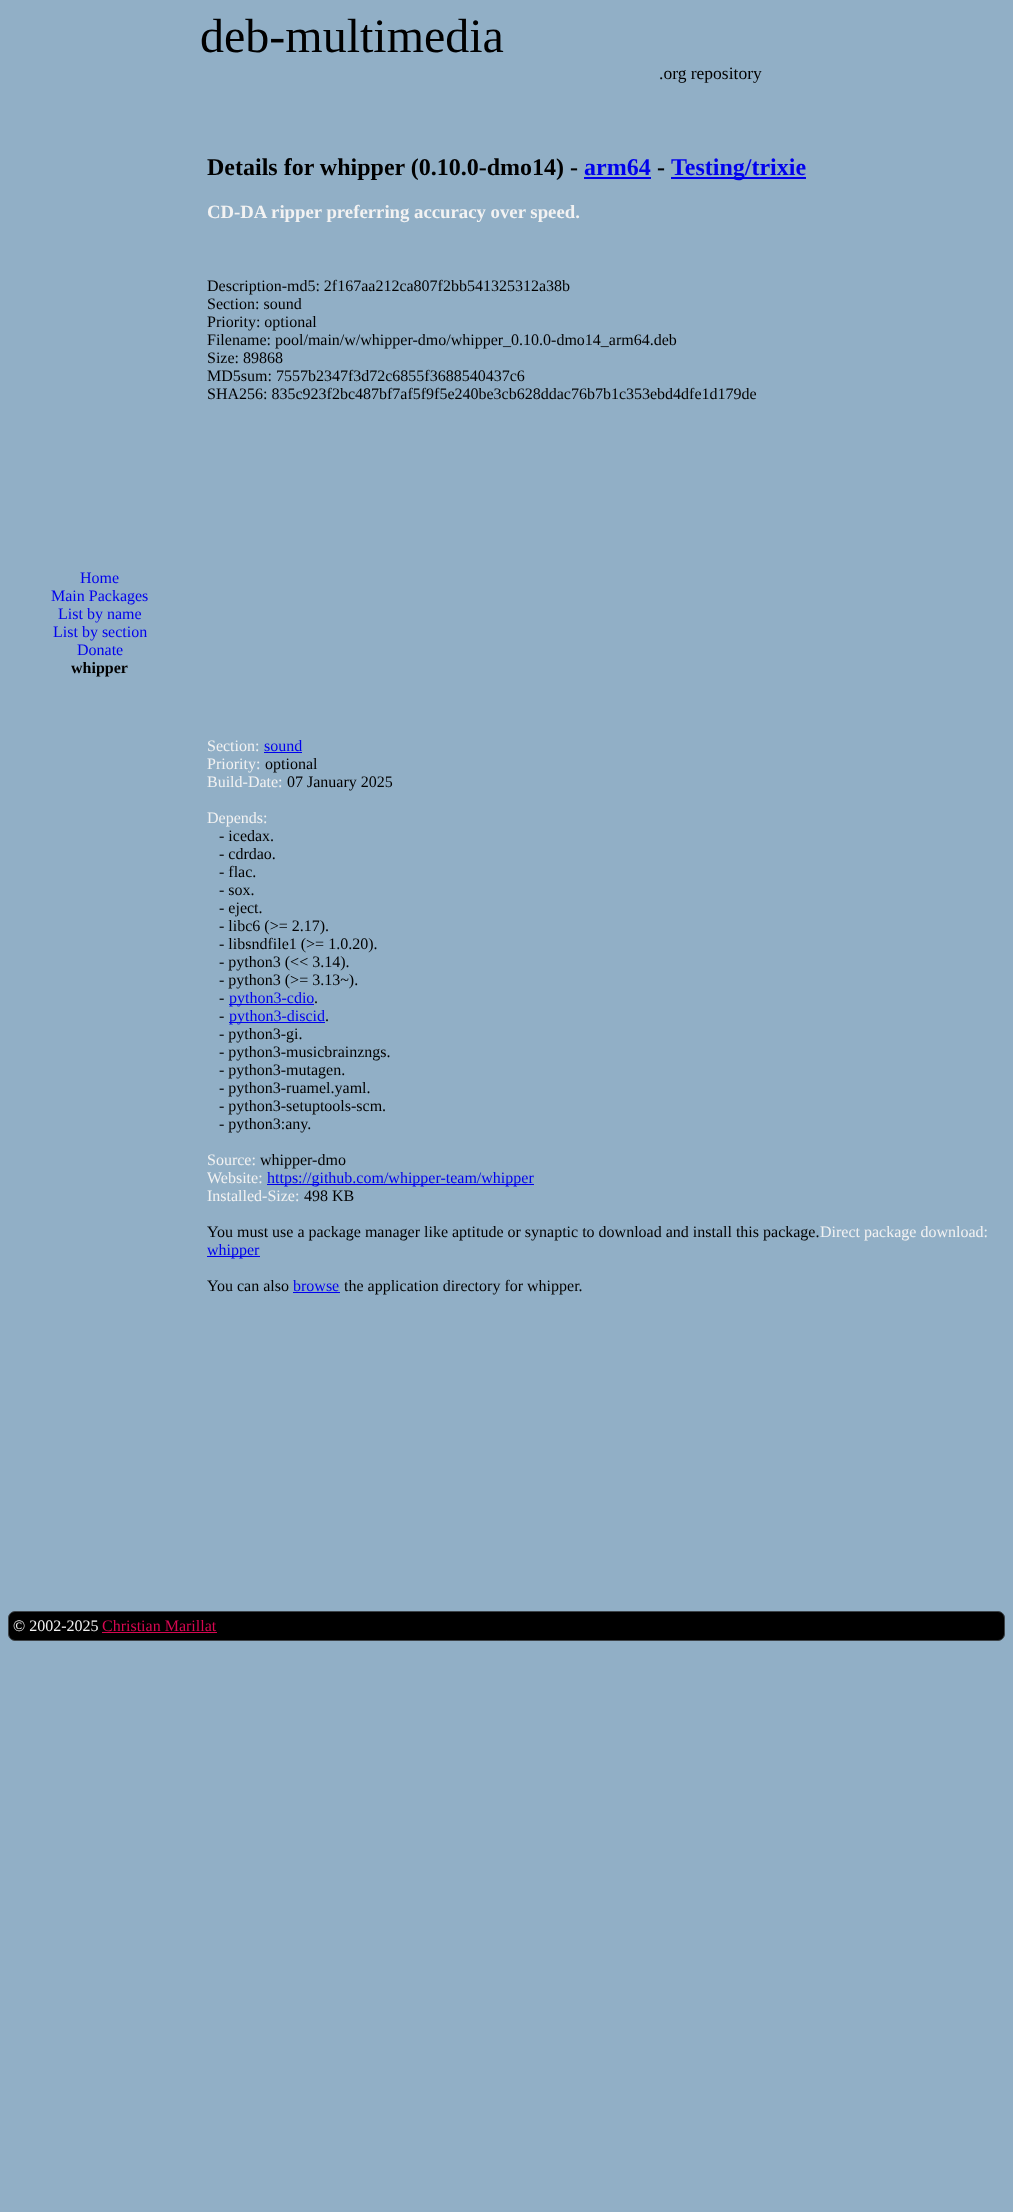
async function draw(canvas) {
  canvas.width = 1013
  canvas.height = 2212
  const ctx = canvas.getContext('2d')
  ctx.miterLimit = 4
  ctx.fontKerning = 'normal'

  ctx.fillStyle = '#91afc6'
  ctx.fillRect(0, 0, 1013, 2212)
  ctx.font = '48px Liberation Serif'
  ctx.fillStyle = '#000'
  ctx.fillText('deb-multimedia', 200, 52)
  ctx.font = '17.5px Liberation Serif'
  ctx.fillText('.org repository', 659, 79)
  ctx.font = '16px Liberation Serif'
  ctx.fillStyle = '#00e'
  ctx.fillText('Home', 80, 583)
  ctx.fillText('Main Packages', 51, 601)
  ctx.fillText('List by name', 58, 619)
  ctx.fillText('List by section', 53, 637)
  ctx.fillText('Donate', 77, 655)
  ctx.font = 'bold 16px Liberation Serif'
  ctx.fillStyle = '#000'
  ctx.fillText('whipper', 71, 673)
  ctx.font = 'bold 24px Liberation Serif'
  ctx.fillText('Details for whipper (0.10.0-dmo14) -', 207, 175)
  ctx.fillStyle = '#00e'
  ctx.fillText('arm64', 584, 175)
  ctx.fillRect(584, 177, 67, 2)
  ctx.fillStyle = '#000'
  ctx.fillText('-', 657, 175)
  ctx.fillStyle = '#00e'
  ctx.fillRect(671, 177, 135, 2)
  ctx.fillText('Testing/trixie', 671, 175)
  ctx.font = 'bold 18.75px Liberation Serif'
  ctx.fillStyle = '#f2f2f2'
  ctx.fillText('CD-DA ripper preferring accuracy over speed.', 207, 218)
  ctx.font = '16px Liberation Serif'
  ctx.fillStyle = '#000'
  ctx.fillText('Description-md5: 2f167aa212ca807f2bb541325312a38b', 207, 291)
  ctx.fillText('Section: sound', 207, 309)
  ctx.fillText('Priority: optional', 207, 327)
  ctx.fillText('Filename: pool/main/w/whipper-dmo/whipper_0.10.0-dmo14_arm64.deb', 207, 345)
  ctx.fillText('Size: 89868', 207, 363)
  ctx.fillText('MD5sum: 7557b2347f3d72c6855f3688540437c6', 207, 381)
  ctx.fillText('SHA256: 835c923f2bc487bf7af5f9f5e240be3cb628ddac76b7b1c353ebd4dfe1d179de', 207, 399)
  ctx.fillStyle = '#f2f2f2'
  ctx.fillText('Section:', 207, 751)
  ctx.fillStyle = '#00e'
  ctx.fillText('sound', 264, 751)
  ctx.fillRect(264, 752, 38, 1)
  ctx.fillStyle = '#f2f2f2'
  ctx.fillText('Priority:', 207, 769)
  ctx.fillStyle = '#000'
  ctx.fillText('optional', 265, 769)
  ctx.fillStyle = '#f2f2f2'
  ctx.fillText('Build-Date:', 207, 787)
  ctx.fillStyle = '#000'
  ctx.fillText('07 January 2025', 287, 787)
  ctx.fillStyle = '#f2f2f2'
  ctx.fillText('Depends:', 207, 823)
  ctx.fillStyle = '#000'
  ctx.fillText('- icedax.', 219, 841)
  ctx.fillText('- cdrdao.', 219, 859)
  ctx.fillText('- flac.', 219, 877)
  ctx.fillText('- sox.', 219, 895)
  ctx.fillText('- eject.', 219, 913)
  ctx.fillText('- libc6 (>= 2.17).', 219, 931)
  ctx.fillText('- libsndfile1 (>= 1.0.20).', 219, 949)
  ctx.fillText('- python3 (<< 3.14).', 219, 967)
  ctx.fillText('- python3 (>= 3.13~).', 219, 985)
  ctx.fillText('-', 219, 1003)
  ctx.fillStyle = '#00e'
  ctx.fillRect(229, 1004, 85, 1)
  ctx.fillText('python3-cdio', 229, 1003)
  ctx.fillStyle = '#000'
  ctx.fillText('.', 314, 1003)
  ctx.fillText('-', 219, 1021)
  ctx.fillStyle = '#00e'
  ctx.fillRect(229, 1022, 96, 1)
  ctx.fillText('python3-discid', 229, 1021)
  ctx.fillStyle = '#000'
  ctx.fillText('.', 325, 1021)
  ctx.fillText('- python3-gi.', 219, 1039)
  ctx.fillText('- python3-musicbrainzngs.', 219, 1057)
  ctx.fillText('- python3-mutagen.', 219, 1075)
  ctx.fillText('- python3-ruamel.yaml.', 219, 1093)
  ctx.fillText('- python3-setuptools-scm.', 219, 1111)
  ctx.fillText('- python3:any.', 219, 1129)
  ctx.fillStyle = '#f2f2f2'
  ctx.fillText('Source:', 207, 1165)
  ctx.fillStyle = '#000'
  ctx.fillText('whipper-dmo', 260, 1165)
  ctx.fillStyle = '#f2f2f2'
  ctx.fillText('Website:', 207, 1183)
  ctx.fillStyle = '#00e'
  ctx.fillRect(267, 1184, 267, 1)
  ctx.fillText('https://github.com/whipper-team/whipper', 267, 1183)
  ctx.fillStyle = '#f2f2f2'
  ctx.fillText('Installed-Size:', 207, 1201)
  ctx.fillStyle = '#000'
  ctx.fillText('498 KB', 304, 1201)
  ctx.fillText('You must use a package manager like aptitude or synaptic to download and install this package.', 207, 1237)
  ctx.fillStyle = '#f2f2f2'
  ctx.fillText('Direct package download:', 820, 1237)
  ctx.fillStyle = '#00e'
  ctx.fillRect(207, 1256, 53, 1)
  ctx.fillText('whipper', 207, 1255)
  ctx.fillStyle = '#000'
  ctx.fillText('You can also', 207, 1291)
  ctx.fillStyle = '#00e'
  ctx.fillText('browse', 293, 1291)
  ctx.fillRect(293, 1292, 47, 1)
  ctx.fillStyle = '#000'
  ctx.fillText('the application directory for whipper.', 344, 1291)
  ctx.beginPath()
  ctx.roundRect(8.5, 1611.5, 996, 29, 6.5)
  ctx.fill()
  ctx.strokeStyle = '#3d4348'
  ctx.stroke()
  ctx.fillStyle = '#f2f2f2'
  ctx.fillText('© 2002-2025', 13, 1631)
  ctx.fillStyle = '#d70751'
  ctx.fillText('Christian Marillat', 102, 1631)
  ctx.fillRect(102, 1632, 115, 1)
}

draw(document.querySelector('canvas'))
